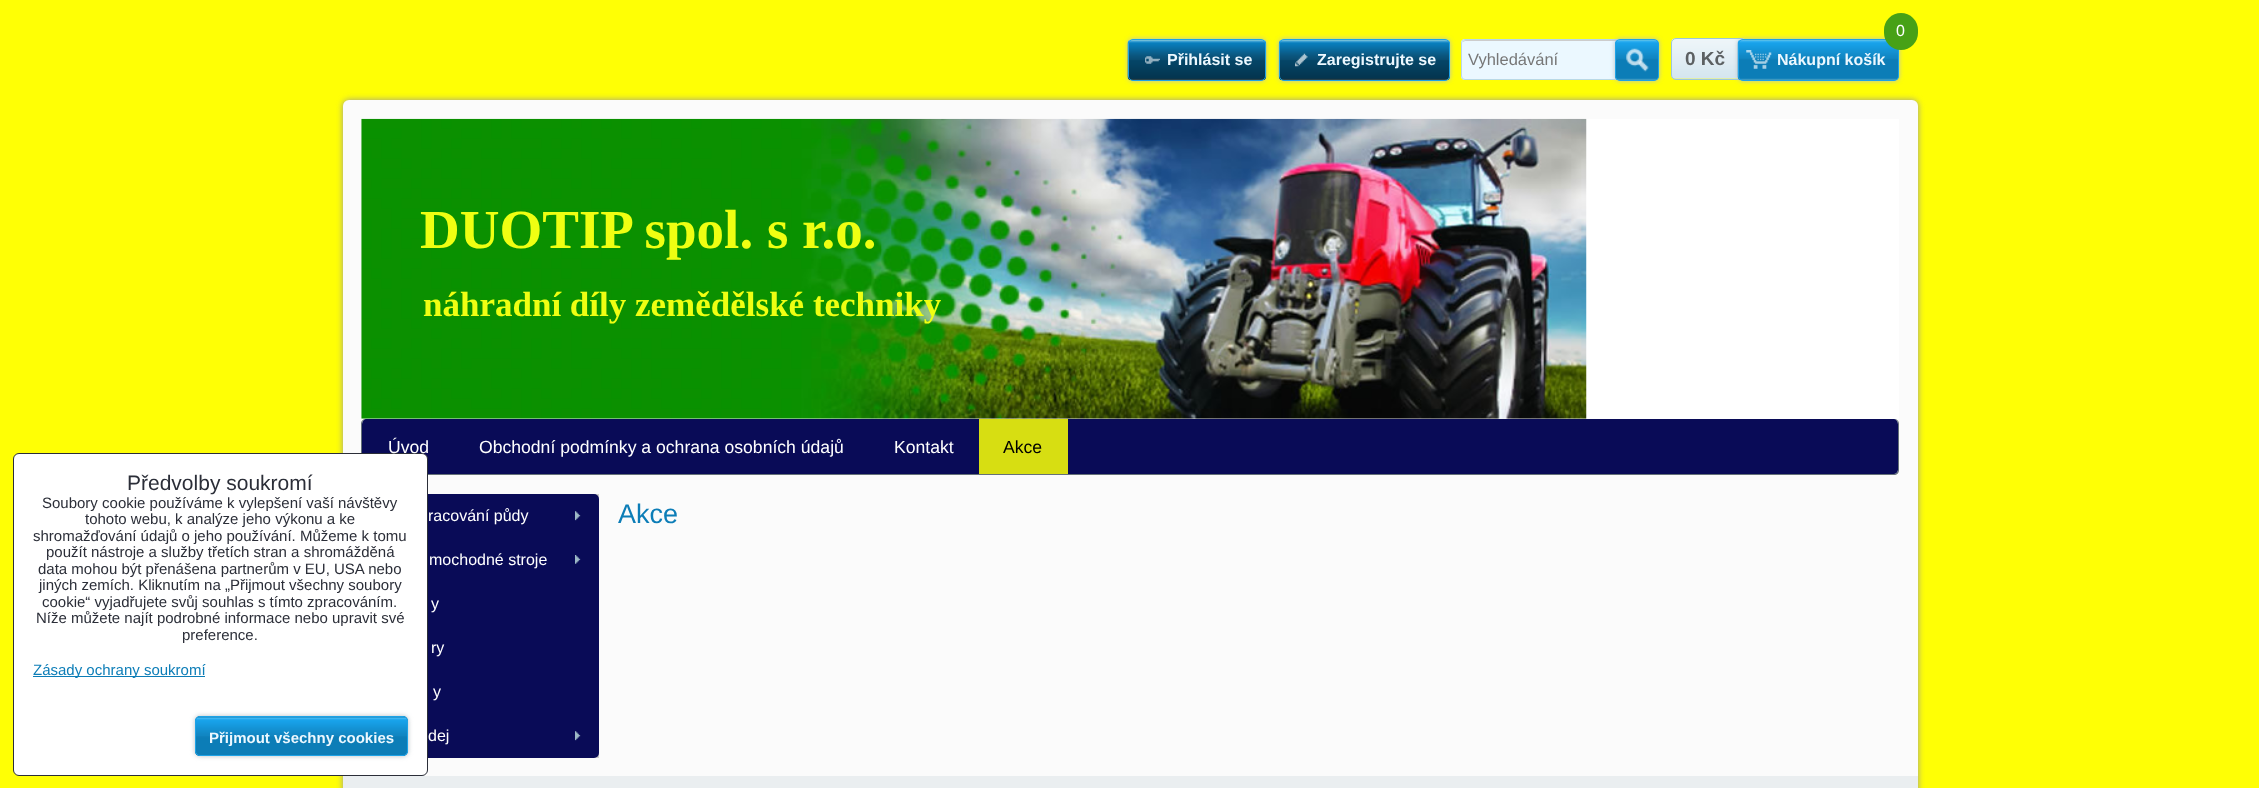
async function draw(canvas) {
  canvas.width = 2259
  canvas.height = 788
  const ctx = canvas.getContext('2d')
  ctx.miterLimit = 4
  ctx.fontKerning = 'normal'
  async function loadImage(src) {
    const img = new Image()
    img.src = src
    await img.decode()
    return img
  }

  ctx.fillStyle = '#ffff05'
  ctx.fillRect(0, 0, 2259, 788)
  ctx.fillStyle = '#999'
  ctx.filter = 'blur(3px)'
  ctx.beginPath()
  ctx.roundRect(343, 100, 1575, 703, 6)
  ctx.fill()
  ctx.filter = 'none'
  ctx.fillStyle = '#fbfbfb'
  ctx.beginPath()
  ctx.roundRect(343, 100, 1575, 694, 6)
  ctx.fill()
  ctx.fillStyle = '#090b57'
  ctx.beginPath()
  ctx.moveTo(366, 419)
  ctx.lineTo(1894, 419)
  ctx.bezierCurveTo(1896, 419, 1898, 421, 1898, 424)
  ctx.lineTo(1898, 470)
  ctx.bezierCurveTo(1898, 472, 1896, 474, 1894, 474)
  ctx.lineTo(366, 474)
  ctx.bezierCurveTo(364, 474, 362, 472, 362, 470)
  ctx.lineTo(362, 424)
  ctx.bezierCurveTo(362, 421, 364, 419, 366, 419)
  ctx.closePath()
  ctx.fill()
  ctx.fillStyle = '#657178'
  ctx.beginPath()
  ctx.moveTo(366, 419)
  ctx.lineTo(1894, 419)
  ctx.bezierCurveTo(1897, 419, 1899, 421, 1899, 424)
  ctx.lineTo(1899, 470)
  ctx.bezierCurveTo(1899, 473, 1897, 475, 1894, 475)
  ctx.lineTo(366, 475)
  ctx.bezierCurveTo(363, 475, 361, 473, 361, 470)
  ctx.lineTo(361, 424)
  ctx.bezierCurveTo(361, 421, 363, 419, 366, 419)
  ctx.closePath()
  ctx.moveTo(366, 419)
  ctx.lineTo(1894, 419)
  ctx.bezierCurveTo(1896, 419, 1898, 421, 1898, 424)
  ctx.lineTo(1898, 470)
  ctx.bezierCurveTo(1898, 472, 1896, 474, 1894, 474)
  ctx.lineTo(366, 474)
  ctx.bezierCurveTo(364, 474, 362, 472, 362, 470)
  ctx.lineTo(362, 424)
  ctx.bezierCurveTo(362, 421, 364, 419, 366, 419)
  ctx.closePath()
  ctx.fill('evenodd')
  ctx.fillStyle = '#090b57'
  ctx.beginPath()
  ctx.roundRect(363, 419, 91, 55, [5, 0, 0, 5])
  ctx.fill()
  ctx.fillStyle = '#ccc'
  ctx.fillRect(594, 494, 5, 264)
  ctx.fillStyle = '#090b57'
  ctx.beginPath()
  ctx.roundRect(361, 494, 238, 44, [5, 5, 0, 0])
  ctx.fill()
  ctx.beginPath()
  ctx.roundRect(361, 714, 238, 44, [0, 0, 5, 5])
  ctx.fill()
  ctx.fillStyle = '#fff'
  ctx.beginPath()
  ctx.roundRect(13.5, 453.5, 414, 322, 5.5)
  ctx.fill()
  ctx.strokeStyle = '#2b2e38'
  ctx.stroke()
  ctx.font = '21px Liberation Sans'
  ctx.fillStyle = '#2b2e38'
  ctx.fillText('Předvolby soukromí', 127, 490)
  ctx.font = '15px Liberation Sans'
  ctx.fillText('Soubory cookie používáme k vylepšení vaší návštěvy', 42, 508)
  ctx.fillText('tohoto webu, k analýze jeho výkonu a ke', 85, 524)
  ctx.fillText('shromažďování údajů o jeho používání. Můžeme k tomu', 33, 541)
  ctx.fillText('použít nástroje a služby třetích stran a shromážděná', 46, 557)
  ctx.fillText('data mohou být přenášena partnerům v EU, USA nebo', 38, 574)
  ctx.fillText('jiných zemích. Kliknutím na „Přijmout všechny soubory', 39, 590)
  ctx.fillText('cookie“ vyjadřujete svůj souhlas s tímto zpracováním.', 42, 607)
  ctx.fillText('Níže můžete najít podrobné informace nebo upravit své', 36, 623)
  ctx.fillText('preference.', 182, 640)
  ctx.fillStyle = '#0c7db7'
  ctx.fillRect(33, 676, 172, 1)
  ctx.fillText('Zásady ochrany soukromí', 33, 675)
  ctx.fillStyle = '#b6bfc3'
  ctx.filter = 'blur(2.5px)'
  ctx.beginPath()
  ctx.roundRect(195, 716, 213, 40, 5)
  ctx.fill()
  ctx.filter = 'none'
  ctx.fillStyle = '#0c7db7'
  ctx.beginPath()
  ctx.roundRect(195, 716, 213, 40, 5)
  ctx.fill()
  ctx.drawImage(await loadImage('image0.png'), 195, 717, 213, 39)
  ctx.beginPath()
  ctx.roundRect(195.5, 716.5, 212, 39, 4.5)
  ctx.strokeStyle = '#1da2e6'
  ctx.stroke()
  ctx.font = 'bold 15px Liberation Sans'
  ctx.fillStyle = '#ecf8ff'
  ctx.fillText('Přijmout všechny cookies', 209, 743)
  ctx.fillStyle = '#b6bfc3'
  ctx.filter = 'blur(2.5px)'
  ctx.beginPath()
  ctx.roundRect(1128, 39, 138, 42, 5)
  ctx.fill()
  ctx.filter = 'none'
  ctx.drawImage(await loadImage('image1.png'), 1127, 39, 140, 42)
  ctx.beginPath()
  ctx.roundRect(1128.5, 39.5, 137, 41, 4.5)
  ctx.stroke()
  ctx.drawImage(await loadImage('image2.png'), 1145, 56, 15, 8)
  ctx.font = 'bold 16px Liberation Sans'
  ctx.fillStyle = '#ecf8ff'
  ctx.fillText('Přihlásit se', 1167, 65)
  ctx.fillStyle = '#b6bfc3'
  ctx.filter = 'blur(2.5px)'
  ctx.beginPath()
  ctx.roundRect(1279, 39, 171, 42, 5)
  ctx.fill()
  ctx.filter = 'none'
  ctx.drawImage(await loadImage('image3.png'), 1278, 39, 172, 42)
  ctx.beginPath()
  ctx.roundRect(1279.5, 39.5, 170, 41, 4.5)
  ctx.stroke()
  ctx.drawImage(await loadImage('image4.png'), 1295, 53, 13, 14)
  ctx.fillStyle = '#ecf8ff'
  ctx.fillText('Zaregistrujte se', 1317, 65)
  ctx.fillStyle = '#ebf8ff'
  ctx.beginPath()
  ctx.roundRect(1461, 39, 160, 41, 4)
  ctx.fill()
  ctx.fillStyle = '#ccc'
  ctx.beginPath()
  ctx.moveTo(1465, 41)
  ctx.lineTo(1618, 41)
  ctx.bezierCurveTo(1619, 41, 1620, 42, 1620, 44)
  ctx.lineTo(1620, 42)
  ctx.bezierCurveTo(1620, 41, 1619, 40, 1618, 40)
  ctx.lineTo(1466, 40)
  ctx.bezierCurveTo(1464, 40, 1463, 41, 1463, 42)
  ctx.closePath()
  ctx.fill()
  ctx.beginPath()
  ctx.roundRect(1461.5, 39.5, 159, 40, 3.5)
  ctx.strokeStyle = '#b9d9e6'
  ctx.stroke()
  ctx.font = '16.5px Liberation Sans'
  ctx.fillStyle = '#777'
  ctx.fillText('Vyhledávání', 1468, 65)
  ctx.fillStyle = '#b6bfc3'
  ctx.filter = 'blur(2.5px)'
  ctx.beginPath()
  ctx.roundRect(1615, 39, 44, 42, 5)
  ctx.fill()
  ctx.filter = 'none'
  ctx.drawImage(await loadImage('image5.png'), 1615, 39, 44, 42)
  ctx.beginPath()
  ctx.roundRect(1615.5, 39.5, 43, 41, 4.5)
  ctx.strokeStyle = '#1da2e6'
  ctx.stroke()
  ctx.drawImage(await loadImage('image6.png'), 1626, 48, 23, 24)
  ctx.drawImage(await loadImage('image7.png'), 1671, 38, 75, 41)
  ctx.beginPath()
  ctx.roundRect(1671.5, 38.5, 74, 41, 4.5)
  ctx.strokeStyle = '#9cc7da'
  ctx.stroke()
  ctx.filter = 'blur(2.5px)'
  ctx.beginPath()
  ctx.roundRect(1738, 39, 161, 42, 5)
  ctx.fill()
  ctx.filter = 'none'
  ctx.drawImage(await loadImage('image8.png'), 1737, 39, 162, 42)
  ctx.beginPath()
  ctx.roundRect(1738.5, 39.5, 160, 41, 4.5)
  ctx.strokeStyle = '#1da2e6'
  ctx.stroke()
  ctx.fillStyle = '#47a116'
  ctx.beginPath()
  ctx.roundRect(1884, 13, 34, 37, 17)
  ctx.fill()
  ctx.font = '16px Liberation Sans'
  ctx.fillStyle = '#fff'
  ctx.fillText('0', 1896, 36)
  ctx.font = 'bold 19px Liberation Sans'
  ctx.fillStyle = '#5c6062'
  ctx.fillText('0 Kč', 1685, 65)
  ctx.drawImage(await loadImage('image9.png'), 1746, 50, 26, 19)
  ctx.font = 'bold 16px Liberation Sans'
  ctx.fillStyle = '#ecf8ff'
  ctx.fillText('Nákupní košík', 1777, 65)
  ctx.fillStyle = '#fff'
  ctx.fillRect(361, 119, 1538, 300)
  ctx.drawImage(await loadImage('image10.png'), 361, 118, 1226, 301)
  ctx.font = 'bold 55px Liberation Serif'
  ctx.fillStyle = '#efff12'
  ctx.fillText('DUOTIP spol. s r.o.', 420, 248)
  ctx.font = 'bold 35px Liberation Serif'
  ctx.fillText('náhradní díly zemědělské techniky', 423, 316)
  ctx.font = '17.6px Liberation Sans'
  ctx.fillStyle = '#fff'
  ctx.fillText('Úvod', 388, 453)
  ctx.fillText('Obchodní podmínky a ochrana osobních údajů', 479, 453)
  ctx.fillText('Kontakt', 894, 453)
  ctx.fillStyle = '#d7de12'
  ctx.fillRect(979, 419, 89, 55)
  ctx.fillStyle = '#000'
  ctx.fillText('Akce', 1003, 453)
  ctx.font = '16px Liberation Sans'
  ctx.fillStyle = '#fff'
  ctx.fillText('racování půdy', 428, 521)
  ctx.drawImage(await loadImage('image11.png'), 575, 511, 6, 10)
  ctx.fillStyle = '#090b57'
  ctx.fillRect(428, 538, 171, 176)
  ctx.fillStyle = '#fff'
  ctx.fillText('mochodné stroje', 429, 565)
  ctx.drawImage(await loadImage('image12.png'), 575, 555, 6, 9)
  ctx.fillText('y', 431, 609)
  ctx.fillText('ry', 431, 653)
  ctx.fillText('y', 433, 697)
  ctx.fillText('dej', 428, 741)
  ctx.drawImage(await loadImage('image11.png'), 575, 731, 6, 10)
  ctx.font = '27px Liberation Sans'
  ctx.fillStyle = '#0c7db7'
  ctx.fillText('Akce', 618, 523)
  ctx.fillStyle = '#eaeef0'
  ctx.fillRect(343, 776, 1575, 12)
}

draw(document.querySelector('canvas'))
